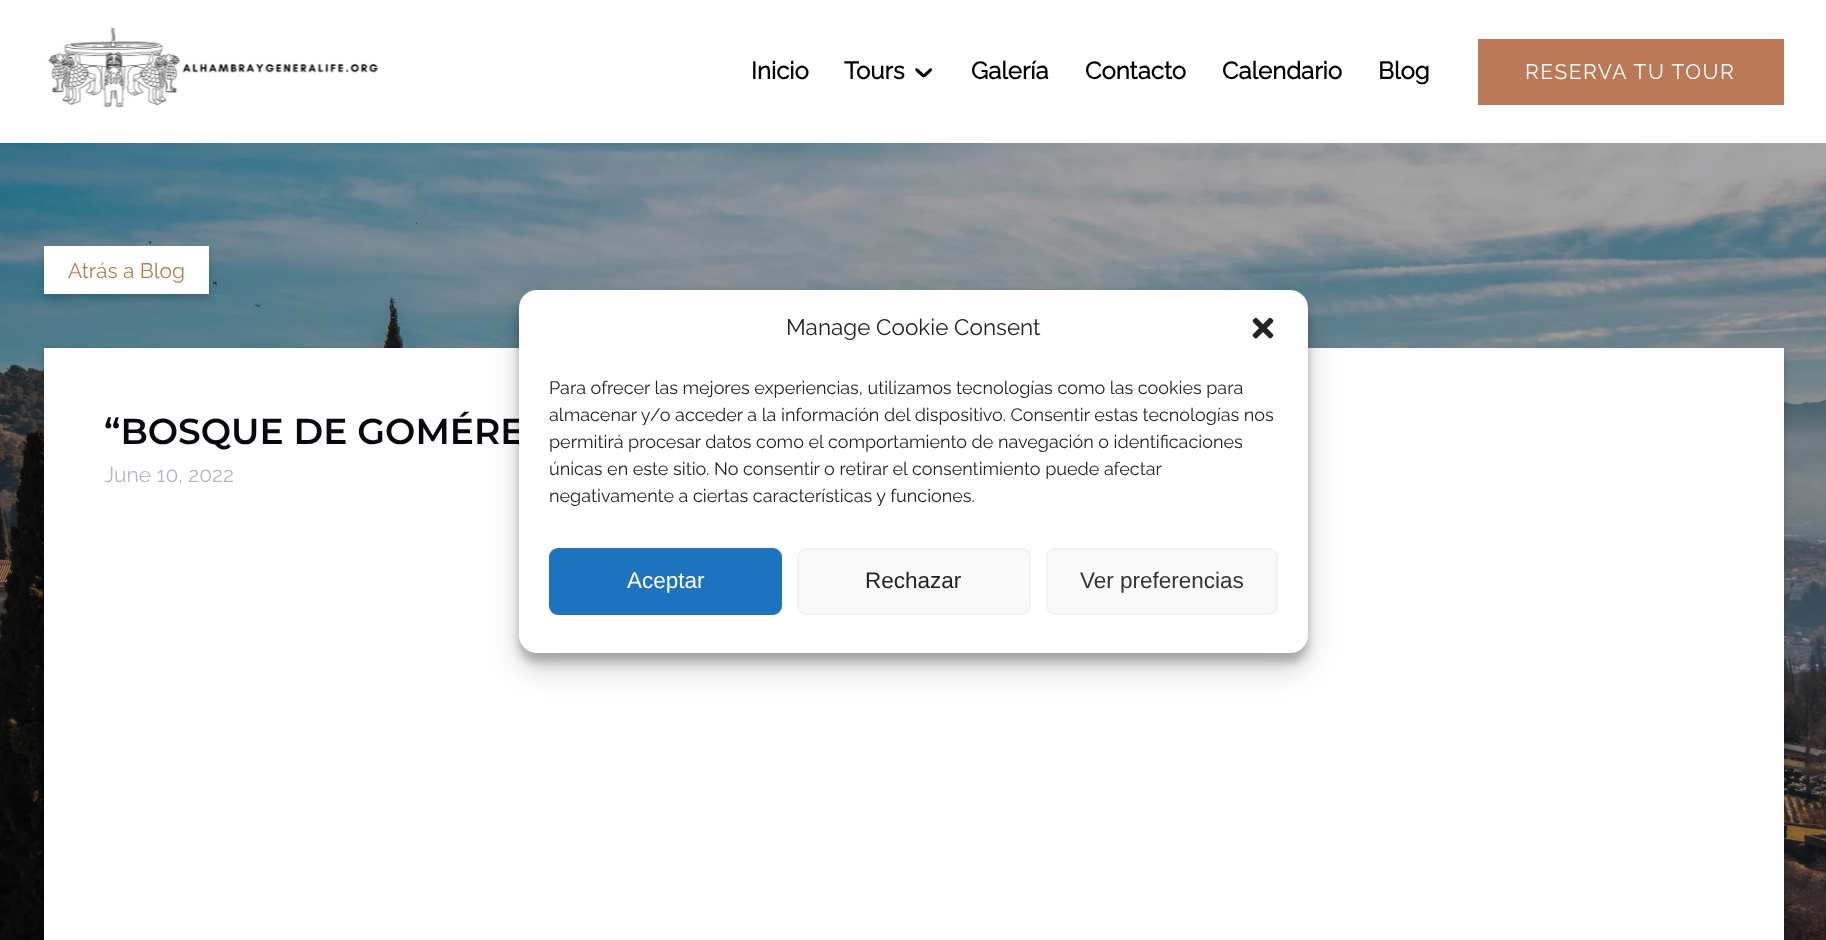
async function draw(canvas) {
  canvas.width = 1826
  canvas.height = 940
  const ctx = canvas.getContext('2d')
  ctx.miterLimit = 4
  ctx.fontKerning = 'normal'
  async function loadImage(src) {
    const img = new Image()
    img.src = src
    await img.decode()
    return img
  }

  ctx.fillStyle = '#fff'
  ctx.fillRect(0, 0, 1826, 940)
  ctx.drawImage(await loadImage('image0.png'), 47, 27, 332, 81)
  ctx.font = 'bold 24px Raleway'
  ctx.fillStyle = '#000'
  ctx.fillText('Inicio', 751, 79)
  ctx.fillText('Tours', 844, 79)
  ctx.beginPath()
  ctx.moveTo(915.5, 68.5)
  ctx.bezierCurveTo(917.5, 67, 920, 71, 921, 71.5)
  ctx.bezierCurveTo(922, 72.5, 926, 75.5, 924, 77)
  ctx.bezierCurveTo(922.5, 78.5, 920, 74.5, 919, 74)
  ctx.bezierCurveTo(918, 73, 914, 70, 915.5, 68.5)
  ctx.closePath()
  ctx.fill()
  ctx.beginPath()
  ctx.moveTo(931.5, 68.5)
  ctx.bezierCurveTo(933.5, 70, 929.5, 73, 928.5, 74)
  ctx.bezierCurveTo(927.5, 74.5, 925, 78.5, 923, 77)
  ctx.bezierCurveTo(921.5, 75.5, 925.5, 72.5, 926.5, 71.5)
  ctx.bezierCurveTo(927.5, 71, 930, 67, 931.5, 68.5)
  ctx.closePath()
  ctx.fill()
  ctx.fillText('Galería', 971, 79)
  ctx.fillText('Contacto', 1085, 79)
  ctx.fillText('Calendario', 1222, 79)
  ctx.fillText('Blog', 1378, 79)
  ctx.fillStyle = '#ba7a57'
  ctx.fillRect(1478, 39, 306, 66)
  ctx.letterSpacing = '1.5px'
  ctx.font = '100 21px Raleway'
  ctx.fillStyle = '#fff'
  ctx.fillText('RESERVA TU TOUR', 1525, 79)
  ctx.drawImage(await loadImage('image1.png'), 0, 143, 1826, 797)
  ctx.fillStyle = '#0000001a'
  ctx.filter = 'blur(4.5px)'
  ctx.beginPath()
  ctx.rect(44, 252, 165, 48)
  ctx.fill()
  ctx.filter = 'none'
  ctx.fillStyle = '#00000014'
  ctx.filter = 'blur(2px)'
  ctx.beginPath()
  ctx.rect(44, 248, 165, 48)
  ctx.fill()
  ctx.filter = 'none'
  ctx.fillStyle = '#fff'
  ctx.fillRect(44, 246, 165, 48)
  ctx.letterSpacing = '0px'
  ctx.fillStyle = '#ba7a57'
  ctx.fillText('Atrás a Blog', 68, 278)
  ctx.fillStyle = '#0000001a'
  ctx.filter = 'blur(4.5px)'
  ctx.beginPath()
  ctx.rect(44, 354, 1740, 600)
  ctx.fill()
  ctx.filter = 'none'
  ctx.fillStyle = '#00000014'
  ctx.filter = 'blur(2px)'
  ctx.beginPath()
  ctx.rect(44, 350, 1740, 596)
  ctx.fill()
  ctx.filter = 'none'
  ctx.fillStyle = '#fff'
  ctx.fillRect(44, 348, 1740, 592)
  ctx.font = '100 36px Montserrat'
  ctx.fillStyle = '#08090e'
  ctx.fillText('“BOSQUE DE GOMÉRE', 104, 444)
  ctx.font = '100 21px Raleway'
  ctx.fillStyle = '#b2b8c1'
  ctx.fillText('June 10, 2022', 104, 482)
  ctx.fillStyle = '#0000003b'
  ctx.filter = 'blur(4.5px)'
  ctx.beginPath()
  ctx.roundRect(519, 299, 789, 363, 18)
  ctx.fill()
  ctx.filter = 'none'
  ctx.fillStyle = '#00000030'
  ctx.filter = 'blur(15px)'
  ctx.beginPath()
  ctx.roundRect(519, 305, 789, 363, 18)
  ctx.fill()
  ctx.filter = 'none'
  ctx.fillStyle = '#fff'
  ctx.beginPath()
  ctx.roundRect(519, 290, 789, 363, 18)
  ctx.fill()
  ctx.font = '100 22.5px Raleway'
  ctx.fillStyle = '#222'
  ctx.fillText('Manage Cookie Consent', 786, 335)
  ctx.drawImage(await loadImage('image2.png'), 1252, 317, 22, 22)
  ctx.font = '100 18px Raleway'
  ctx.fillText('Para ofrecer las mejores experiencias, utilizamos tecnologías como las cookies para', 549, 394)
  ctx.fillText('almacenar y/o acceder a la información del dispositivo. Consentir estas tecnologías nos', 549, 421)
  ctx.fillText('permitirá procesar datos como el comportamiento de navegación o identificaciones', 549, 448)
  ctx.fillText('únicas en este sitio. No consentir o retirar el consentimiento puede afectar', 549, 475)
  ctx.fillText('negativamente a ciertas características y funciones.', 549, 502)
  ctx.fillStyle = '#1e73be'
  ctx.beginPath()
  ctx.roundRect(550, 549, 231, 65, 8)
  ctx.fill()
  ctx.strokeStyle = '#1e73be'
  ctx.lineWidth = 2
  ctx.stroke()
  ctx.font = '22.5px Liberation Sans'
  ctx.fillStyle = '#fff'
  ctx.fillText('Aceptar', 627, 588)
  ctx.fillStyle = '#f9f9f9'
  ctx.beginPath()
  ctx.roundRect(798, 549, 232, 65, 8)
  ctx.fill()
  ctx.strokeStyle = '#f2f2f2'
  ctx.stroke()
  ctx.fillStyle = '#222'
  ctx.fillText('Rechazar', 865, 588)
  ctx.fillStyle = '#f9f9f9'
  ctx.beginPath()
  ctx.roundRect(1047, 549, 230, 65, 8)
  ctx.fill()
  ctx.stroke()
  ctx.fillStyle = '#333'
  ctx.fillText('Ver preferencias', 1080, 588)
}

draw(document.querySelector('canvas'))
